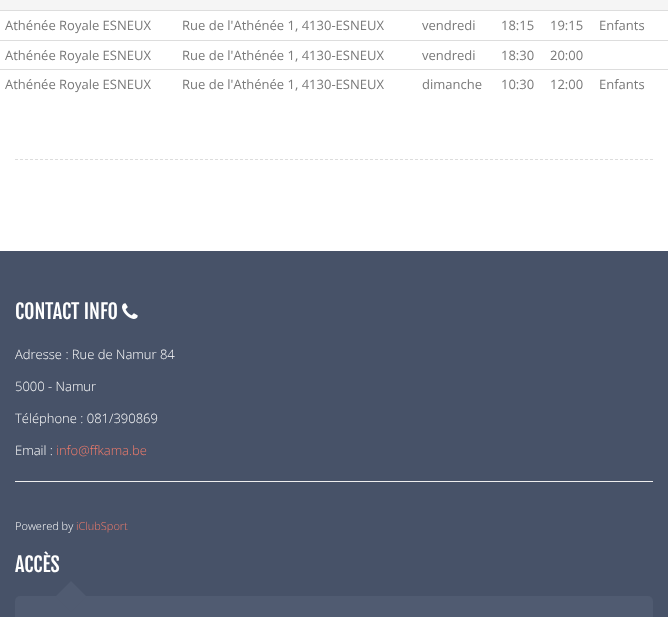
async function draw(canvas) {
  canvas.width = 668
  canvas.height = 617
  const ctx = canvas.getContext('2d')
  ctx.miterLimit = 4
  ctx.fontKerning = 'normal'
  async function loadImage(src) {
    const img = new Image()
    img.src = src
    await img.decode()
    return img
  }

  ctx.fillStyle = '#fff'
  ctx.fillRect(0, 0, 668, 617)
  ctx.beginPath()
  ctx.moveTo(15, 159.5)
  ctx.lineTo(653, 159.5)
  ctx.strokeStyle = '#ddd'
  ctx.setLineDash([3, 2])
  ctx.stroke()
  ctx.fillStyle = '#f5f5f5'
  ctx.fillRect(0, 0, 668, 10)
  ctx.fillStyle = '#ddd'
  ctx.fillRect(0, 10, 668, 1)
  ctx.font = '13px Open Sans'
  ctx.fillStyle = '#797979'
  ctx.fillText('Athénée Royale ESNEUX', 5, 30)
  ctx.fillText('Rue de l\'Athénée 1, 4130-ESNEUX', 182, 30)
  ctx.fillText('vendredi', 422, 30)
  ctx.fillText('18:15', 501, 30)
  ctx.fillText('19:15', 550, 30)
  ctx.fillText('Enfants', 599, 30)
  ctx.fillStyle = '#ddd'
  ctx.fillRect(0, 40, 668, 1)
  ctx.fillStyle = '#797979'
  ctx.fillText('Athénée Royale ESNEUX', 5, 60)
  ctx.fillText('Rue de l\'Athénée 1, 4130-ESNEUX', 182, 60)
  ctx.fillText('vendredi', 422, 60)
  ctx.fillText('18:30', 501, 60)
  ctx.fillText('20:00', 550, 60)
  ctx.fillStyle = '#ddd'
  ctx.fillRect(0, 69, 668, 1)
  ctx.fillStyle = '#797979'
  ctx.fillText('Athénée Royale ESNEUX', 5, 89)
  ctx.fillText('Rue de l\'Athénée 1, 4130-ESNEUX', 182, 89)
  ctx.fillText('dimanche', 422, 89)
  ctx.fillText('10:30', 501, 89)
  ctx.fillText('12:00', 550, 89)
  ctx.fillText('Enfants', 599, 89)
  ctx.fillStyle = '#475268'
  ctx.fillRect(0, 251, 668, 366)
  ctx.font = '20px Fjalla One'
  ctx.fillStyle = '#fff'
  ctx.fillText('CONTACT INFO', 15, 319)
  ctx.drawImage(await loadImage('image0.png'), 122, 303, 16, 16)
  ctx.font = '300 13px Open Sans'
  ctx.fillText('Adresse : Rue de Namur 84', 15, 359)
  ctx.fillText('5000 - Namur', 15, 391)
  ctx.fillText('Téléphone : 081/390869', 15, 423)
  ctx.fillText('Email :', 15, 455)
  ctx.fillStyle = '#f37c6b'
  ctx.fillText('info@ffkama.be', 56, 455)
  ctx.fillStyle = '#eee'
  ctx.fillRect(15, 481, 638, 1)
  ctx.font = '300 11px Open Sans'
  ctx.fillStyle = '#fff'
  ctx.fillText('Powered by', 15, 530)
  ctx.fillStyle = '#f37c6b'
  ctx.fillText('iClubSport', 76, 530)
  ctx.font = '20px Fjalla One'
  ctx.fillStyle = '#fff'
  ctx.fillText('ACCÈS', 15, 572)
  ctx.fillStyle = '#505b71'
  ctx.beginPath()
  ctx.roundRect(15, 596, 638, 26, 5)
  ctx.fill()
  ctx.beginPath()
  ctx.moveTo(71, 581)
  ctx.lineTo(86.5, 596.5)
  ctx.lineTo(71, 612)
  ctx.lineTo(55.5, 596.5)
  ctx.closePath()
  ctx.fill()
}

draw(document.querySelector('canvas'))
